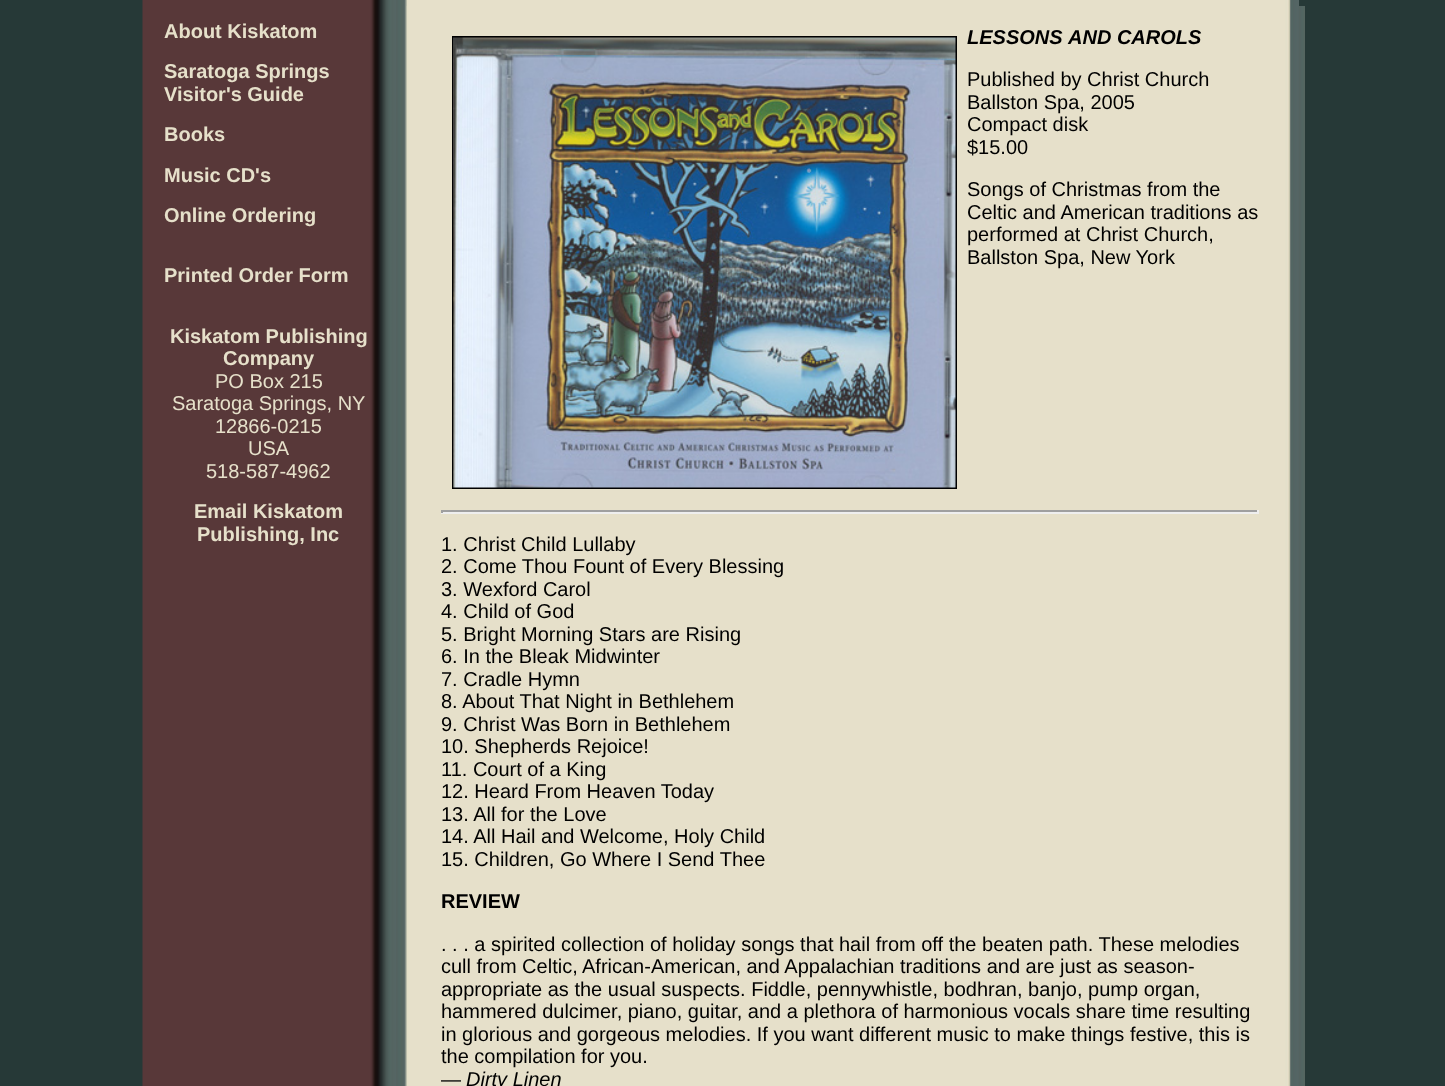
async function draw(canvas) {
  canvas.width = 1445
  canvas.height = 1086
  const ctx = canvas.getContext('2d')
  ctx.miterLimit = 4
  ctx.fontKerning = 'normal'
  async function loadImage(src) {
    const img = new Image()
    img.src = src
    await img.decode()
    return img
  }

  ctx.fillStyle = '#263937'
  ctx.fillRect(0, 0, 1445, 1086)
  ctx.drawImage(await loadImage('image0.png'), 142, 0, 254, 1086)
  ctx.font = 'bold 20px Liberation Sans'
  ctx.fillStyle = '#e6e0ca'
  ctx.fillText('About Kiskatom', 164, 38)
  ctx.fillText('Saratoga Springs', 164, 78)
  ctx.fillText('Visitor\'s Guide', 164, 101)
  ctx.fillText('Books', 164, 141)
  ctx.fillText('Music CD\'s', 164, 182)
  ctx.fillText('Online Ordering', 164, 222)
  ctx.fillText('Printed Order Form', 164, 282)
  ctx.fillText('Kiskatom Publishing', 170, 343)
  ctx.fillText('Company', 223, 365)
  ctx.font = '20px Liberation Sans'
  ctx.fillText('PO Box 215', 215, 388)
  ctx.fillText('Saratoga Springs, NY', 172, 410)
  ctx.fillText('12866-0215', 215, 433)
  ctx.fillText('USA', 248, 455)
  ctx.fillText('518-587-4962', 206, 478)
  ctx.font = 'bold 20px Liberation Sans'
  ctx.fillText('Email Kiskatom', 194, 518)
  ctx.fillText('Publishing, Inc', 197, 541)
  ctx.drawImage(await loadImage('image1.png'), 396, 0, 903, 6)
  ctx.drawImage(await loadImage('image2.png'), 396, 6, 909, 1080)
  ctx.strokeStyle = '#000'
  ctx.lineWidth = 2
  ctx.strokeRect(453, 37, 503, 451)
  ctx.drawImage(await loadImage('image3.png'), 453, 37, 503, 451)
  ctx.font = 'italic bold 20px Liberation Sans'
  ctx.fillStyle = '#000'
  ctx.fillText('LESSONS', 967, 44)
  ctx.fillText('AND CAROLS', 1068, 44)
  ctx.font = '20px Liberation Sans'
  ctx.fillText('Published by Christ Church', 967, 86)
  ctx.fillText('Ballston Spa, 2005', 967, 109)
  ctx.fillText('Compact disk', 967, 131)
  ctx.fillText('$15.00', 967, 154)
  ctx.fillText('Songs of Christmas from the', 967, 196)
  ctx.fillText('Celtic and American traditions as', 967, 219)
  ctx.fillText('performed at Christ Church,', 967, 241)
  ctx.fillText('Ballston Spa, New York', 967, 264)
  ctx.fillStyle = '#9f9f9f'
  ctx.fillRect(441, 510, 818, 2)
  ctx.fillStyle = '#eee'
  ctx.fillRect(1257, 510, 2, 3)
  ctx.fillRect(441, 512, 818, 2)
  ctx.fillStyle = '#9f9f9f'
  ctx.fillRect(441, 510, 2, 3)
  ctx.fillStyle = '#000'
  ctx.fillText('1. Christ Child Lullaby', 441, 551)
  ctx.fillText('2. Come Thou Fount of Every Blessing', 441, 573)
  ctx.fillText('3. Wexford Carol', 441, 596)
  ctx.fillText('4. Child of God', 441, 618)
  ctx.fillText('5. Bright Morning Stars are Rising', 441, 641)
  ctx.fillText('6. In the Bleak Midwinter', 441, 663)
  ctx.fillText('7. Cradle Hymn', 441, 686)
  ctx.fillText('8. About That Night in Bethlehem', 441, 708)
  ctx.fillText('9. Christ Was Born in Bethlehem', 441, 731)
  ctx.fillText('10. Shepherds Rejoice!', 441, 753)
  ctx.fillText('11. Court of a King', 441, 776)
  ctx.fillText('12. Heard From Heaven Today', 441, 798)
  ctx.fillText('13. All for the Love', 441, 821)
  ctx.fillText('14. All Hail and Welcome, Holy Child', 441, 843)
  ctx.fillText('15. Children, Go Where I Send Thee', 441, 866)
  ctx.font = 'bold 20px Liberation Sans'
  ctx.fillText('REVIEW', 441, 908)
  ctx.font = '20px Liberation Sans'
  ctx.fillText('. . . a spirited collection of holiday songs that hail from off the beaten path. These melodies', 441, 951)
  ctx.fillText('cull from Celtic,', 441, 973)
  ctx.fillText('African-American, and Appalachian traditions and are just as season-', 582, 973)
  ctx.fillText('appropriate as the usual suspects. Fiddle, pennywhistle, bodhran, banjo, pump organ,', 441, 996)
  ctx.fillText('hammered dulcimer, piano, guitar, and a plethora of harmonious vocals share time resulting', 441, 1018)
  ctx.fillText('in glorious and gorgeous melodies. If you want different music to make things festive, this is', 441, 1041)
  ctx.fillText('the compilation for you.', 441, 1063)
  ctx.fillText('—', 441, 1086)
  ctx.font = 'italic 20px Liberation Sans'
  ctx.fillText('Dirty Linen', 466, 1086)
}

draw(document.querySelector('canvas'))
